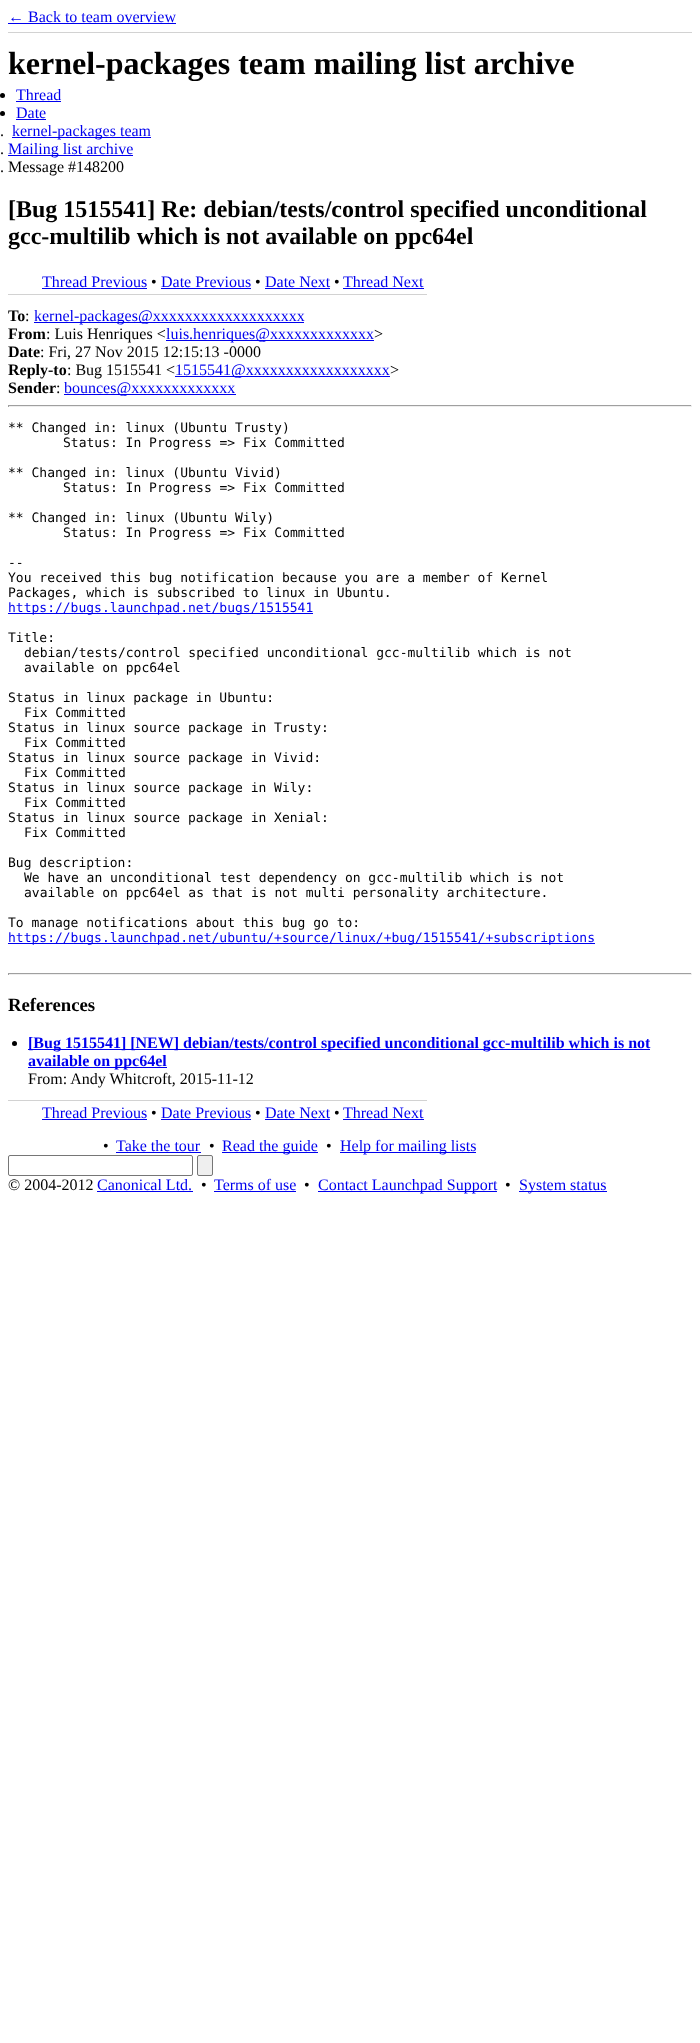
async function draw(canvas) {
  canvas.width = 700
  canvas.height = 2043
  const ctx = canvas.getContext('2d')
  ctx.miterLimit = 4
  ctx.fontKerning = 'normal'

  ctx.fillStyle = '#fff'
  ctx.fillRect(0, 0, 700, 2043)
  ctx.fillStyle = '#d2d2d2'
  ctx.fillRect(8, 32, 684, 1)
  ctx.font = '16px Liberation Serif'
  ctx.fillStyle = '#00e'
  ctx.fillText('← Back to team overview', 8, 22)
  ctx.fillRect(8, 23, 168, 1)
  ctx.font = 'bold 32px Liberation Serif'
  ctx.fillStyle = '#000'
  ctx.fillText('kernel-packages team mailing list archive', 8, 74)
  ctx.beginPath()
  ctx.arc(2.5, 95.5, 2.5, 0, 2 * Math.PI)
  ctx.fill()
  ctx.font = '16px Liberation Serif'
  ctx.fillStyle = '#00e'
  ctx.fillText('Thread', 16, 100)
  ctx.fillRect(16, 101, 45, 1)
  ctx.fillStyle = '#000'
  ctx.beginPath()
  ctx.arc(2.5, 113.5, 2.5, 0, 2 * Math.PI)
  ctx.fill()
  ctx.fillStyle = '#00e'
  ctx.fillText('Date', 16, 118)
  ctx.fillRect(16, 119, 30, 1)
  ctx.fillStyle = '#000'
  ctx.fillText('.', 0, 136)
  ctx.fillStyle = '#00e'
  ctx.fillRect(12, 137, 139, 1)
  ctx.fillText('kernel-packages team', 12, 136)
  ctx.fillStyle = '#000'
  ctx.fillText('.', 0, 154)
  ctx.fillStyle = '#00e'
  ctx.fillRect(8, 155, 125, 1)
  ctx.fillText('Mailing list archive', 8, 154)
  ctx.fillStyle = '#000'
  ctx.fillText('. Message #148200', 0, 172)
  ctx.font = 'bold 24px Liberation Serif'
  ctx.fillText('[Bug 1515541] Re: debian/tests/control specified unconditional', 8, 217)
  ctx.fillText('gcc-multilib which is not available on ppc64el', 8, 244)
  ctx.fillStyle = '#d2d2d2'
  ctx.fillRect(8, 294, 419, 1)
  ctx.font = '16px Liberation Serif'
  ctx.fillStyle = '#00e'
  ctx.fillText('Thread Previous', 42, 287)
  ctx.fillRect(42, 288, 105, 1)
  ctx.fillStyle = '#000'
  ctx.fillText('•', 151, 287)
  ctx.fillStyle = '#00e'
  ctx.fillText('Date Previous', 161, 287)
  ctx.fillRect(161, 288, 90, 1)
  ctx.fillStyle = '#000'
  ctx.fillText('•', 255, 287)
  ctx.fillStyle = '#00e'
  ctx.fillText('Date Next', 265, 287)
  ctx.fillRect(265, 288, 65, 1)
  ctx.fillStyle = '#000'
  ctx.fillText('•', 334, 287)
  ctx.fillStyle = '#00e'
  ctx.fillText('Thread Next', 343, 287)
  ctx.fillRect(343, 288, 81, 1)
  ctx.font = 'bold 16px Liberation Serif'
  ctx.fillStyle = '#000'
  ctx.fillText('To', 8, 321)
  ctx.font = '16px Liberation Serif'
  ctx.fillText(':', 25, 321)
  ctx.fillStyle = '#00e'
  ctx.fillRect(34, 322, 270, 1)
  ctx.fillText('kernel-packages@xxxxxxxxxxxxxxxxxxx', 34, 321)
  ctx.font = 'bold 16px Liberation Serif'
  ctx.fillStyle = '#000'
  ctx.fillText('From', 8, 339)
  ctx.font = '16px Liberation Serif'
  ctx.fillText(': Luis Henriques <', 46, 339)
  ctx.fillStyle = '#00e'
  ctx.fillRect(166, 340, 208, 1)
  ctx.fillText('luis.henriques@xxxxxxxxxxxxx', 166, 339)
  ctx.fillStyle = '#000'
  ctx.fillText('>', 374, 339)
  ctx.font = 'bold 16px Liberation Serif'
  ctx.fillText('Date', 8, 357)
  ctx.font = '16px Liberation Serif'
  ctx.fillText(': Fri, 27 Nov 2015 12:15:13 -0000', 40, 357)
  ctx.font = 'bold 16px Liberation Serif'
  ctx.fillText('Reply-to', 8, 375)
  ctx.font = '16px Liberation Serif'
  ctx.fillText(': Bug 1515541 <', 67, 375)
  ctx.fillStyle = '#00e'
  ctx.fillRect(175, 376, 215, 1)
  ctx.fillText('1515541@xxxxxxxxxxxxxxxxxx', 175, 375)
  ctx.fillStyle = '#000'
  ctx.fillText('>', 390, 375)
  ctx.font = 'bold 16px Liberation Serif'
  ctx.fillText('Sender', 8, 393)
  ctx.font = '16px Liberation Serif'
  ctx.fillText(':', 56, 393)
  ctx.fillStyle = '#00e'
  ctx.fillRect(64, 394, 172, 1)
  ctx.fillText('bounces@xxxxxxxxxxxxx', 64, 393)
  ctx.fillStyle = '#9f9f9f'
  ctx.fillRect(8, 405, 684, 1)
  ctx.fillStyle = '#eee'
  ctx.fillRect(691, 405, 1, 2)
  ctx.fillRect(8, 406, 684, 1)
  ctx.fillStyle = '#9f9f9f'
  ctx.fillRect(8, 405, 1, 2)
  ctx.font = '13px DejaVu Sans Mono'
  ctx.fillStyle = '#000'
  ctx.fillText('** Changed in: linux (Ubuntu Trusty)', 8, 432)
  ctx.fillText('Status: In Progress => Fix Committed', 63, 447)
  ctx.fillText('** Changed in: linux (Ubuntu Vivid)', 8, 477)
  ctx.fillText('Status: In Progress => Fix Committed', 63, 492)
  ctx.fillText('** Changed in: linux (Ubuntu Wily)', 8, 522)
  ctx.fillText('Status: In Progress => Fix Committed', 63, 537)
  ctx.fillText('--', 8, 567)
  ctx.fillText('You received this bug notification because you are a member of Kernel', 8, 582)
  ctx.fillText('Packages, which is subscribed to linux in Ubuntu.', 8, 597)
  ctx.fillStyle = '#00e'
  ctx.fillRect(8, 613, 305, 1)
  ctx.fillText('https://bugs.launchpad.net/bugs/1515541', 8, 612)
  ctx.fillStyle = '#000'
  ctx.fillText('Title:', 8, 642)
  ctx.fillText('debian/tests/control specified unconditional gcc-multilib which is not', 24, 657)
  ctx.fillText('available on ppc64el', 24, 672)
  ctx.fillText('Status in linux package in Ubuntu:', 8, 702)
  ctx.fillText('Fix Committed', 24, 717)
  ctx.fillText('Status in linux source package in Trusty:', 8, 732)
  ctx.fillText('Fix Committed', 24, 747)
  ctx.fillText('Status in linux source package in Vivid:', 8, 762)
  ctx.fillText('Fix Committed', 24, 777)
  ctx.fillText('Status in linux source package in Wily:', 8, 792)
  ctx.fillText('Fix Committed', 24, 807)
  ctx.fillText('Status in linux source package in Xenial:', 8, 822)
  ctx.fillText('Fix Committed', 24, 837)
  ctx.fillText('Bug description:', 8, 867)
  ctx.fillText('We have an unconditional test dependency on gcc-multilib which is not', 24, 882)
  ctx.fillText('available on ppc64el as that is not multi personality architecture.', 24, 897)
  ctx.fillText('To manage notifications about this bug go to:', 8, 927)
  ctx.fillStyle = '#00e'
  ctx.fillRect(8, 943, 587, 1)
  ctx.fillText('https://bugs.launchpad.net/ubuntu/+source/linux/+bug/1515541/+subscriptions', 8, 942)
  ctx.fillStyle = '#9f9f9f'
  ctx.fillRect(8, 973, 684, 1)
  ctx.fillStyle = '#eee'
  ctx.fillRect(691, 973, 1, 2)
  ctx.fillRect(8, 974, 684, 1)
  ctx.fillStyle = '#9f9f9f'
  ctx.fillRect(8, 973, 1, 2)
  ctx.font = 'bold 18.75px Liberation Serif'
  ctx.fillStyle = '#000'
  ctx.fillText('References', 8, 1011)
  ctx.beginPath()
  ctx.arc(14.5, 1043.5, 2.5, 0, 2 * Math.PI)
  ctx.fill()
  ctx.fillStyle = '#00e'
  ctx.fillRect(28, 1049, 622, 1)
  ctx.font = 'bold 16px Liberation Serif'
  ctx.fillText('[Bug 1515541] [NEW] debian/tests/control specified unconditional gcc-multilib which is not', 28, 1048)
  ctx.fillRect(28, 1067, 139, 1)
  ctx.fillText('available on ppc64el', 28, 1066)
  ctx.font = '16px Liberation Serif'
  ctx.fillStyle = '#000'
  ctx.fillText('From: Andy Whitcroft, 2015-11-12', 28, 1084)
  ctx.fillStyle = '#d2d2d2'
  ctx.fillRect(8, 1100, 419, 1)
  ctx.fillStyle = '#00e'
  ctx.fillText('Thread Previous', 42, 1118)
  ctx.fillRect(42, 1119, 105, 1)
  ctx.fillStyle = '#000'
  ctx.fillText('•', 151, 1118)
  ctx.fillStyle = '#00e'
  ctx.fillText('Date Previous', 161, 1118)
  ctx.fillRect(161, 1119, 90, 1)
  ctx.fillStyle = '#000'
  ctx.fillText('•', 255, 1118)
  ctx.fillStyle = '#00e'
  ctx.fillText('Date Next', 265, 1118)
  ctx.fillRect(265, 1119, 65, 1)
  ctx.fillStyle = '#000'
  ctx.fillText('•', 334, 1118)
  ctx.fillStyle = '#00e'
  ctx.fillText('Thread Next', 343, 1118)
  ctx.fillRect(343, 1119, 81, 1)
  ctx.fillStyle = '#000'
  ctx.fillText('•', 103, 1151)
  ctx.fillStyle = '#00e'
  ctx.fillText('Take the tour', 116, 1151)
  ctx.fillRect(116, 1152, 85, 1)
  ctx.fillStyle = '#000'
  ctx.fillText('•', 209, 1151)
  ctx.fillStyle = '#00e'
  ctx.fillRect(222, 1152, 96, 1)
  ctx.fillText('Read the guide', 222, 1151)
  ctx.fillStyle = '#000'
  ctx.fillText('•', 326, 1151)
  ctx.fillStyle = '#00e'
  ctx.fillRect(340, 1152, 136, 1)
  ctx.fillText('Help for mailing lists', 340, 1151)
  ctx.beginPath()
  ctx.roundRect(8.5, 1155.5, 184, 20, 1.5)
  ctx.strokeStyle = '#767676'
  ctx.stroke()
  ctx.fillStyle = '#efefef'
  ctx.beginPath()
  ctx.roundRect(197.5, 1155.5, 15, 20, 1.5)
  ctx.fill()
  ctx.stroke()
  ctx.fillStyle = '#000'
  ctx.fillText('© 2004-2012', 8, 1190)
  ctx.fillStyle = '#00e'
  ctx.fillText('Canonical Ltd.', 97, 1190)
  ctx.fillRect(97, 1191, 96, 1)
  ctx.fillStyle = '#000'
  ctx.fillText('•', 201, 1190)
  ctx.fillStyle = '#00e'
  ctx.fillText('Terms of use', 214, 1190)
  ctx.fillRect(214, 1191, 82, 1)
  ctx.fillStyle = '#000'
  ctx.fillText('•', 304, 1190)
  ctx.fillStyle = '#00e'
  ctx.fillRect(318, 1191, 179, 1)
  ctx.fillText('Contact Launchpad Support', 318, 1190)
  ctx.fillStyle = '#000'
  ctx.fillText('•', 505, 1190)
  ctx.fillStyle = '#00e'
  ctx.fillRect(519, 1191, 88, 1)
  ctx.fillText('System status', 519, 1190)
}

draw(document.querySelector('canvas'))
